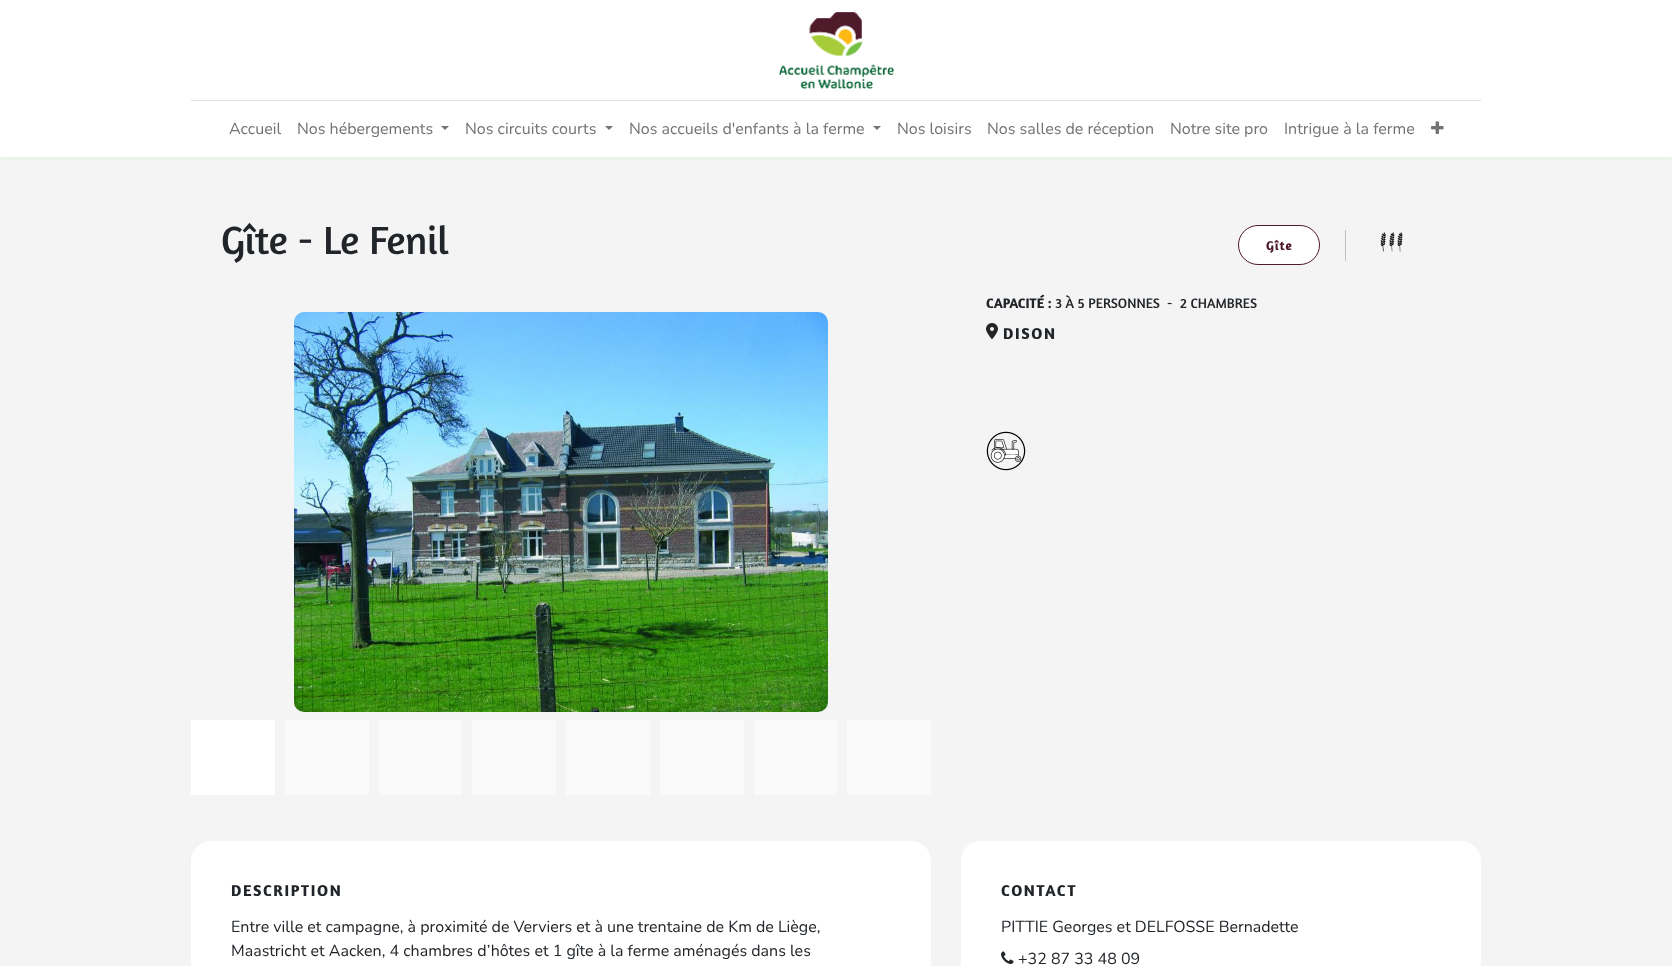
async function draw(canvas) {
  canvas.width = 1672
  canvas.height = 966
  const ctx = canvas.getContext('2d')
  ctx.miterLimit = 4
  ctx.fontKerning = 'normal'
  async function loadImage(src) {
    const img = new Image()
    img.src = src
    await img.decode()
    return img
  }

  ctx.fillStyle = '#f4f4f4'
  ctx.fillRect(0, 0, 1672, 966)
  ctx.fillStyle = '#59e42f14'
  ctx.filter = 'blur(2px)'
  ctx.beginPath()
  ctx.rect(0, 2, 1672, 157)
  ctx.fill()
  ctx.filter = 'none'
  ctx.fillStyle = '#fff'
  ctx.fillRect(0, 0, 1672, 157)
  ctx.drawImage(await loadImage('image0.png'), 779, 12, 115, 77)
  ctx.fillStyle = '#dee2e6'
  ctx.fillRect(191, 100, 1290, 1)
  ctx.font = '16px Nunito'
  ctx.fillStyle = '#737373'
  ctx.fillText('Accueil', 229, 134)
  ctx.fillText('Nos hébergements', 297, 134)
  ctx.beginPath()
  ctx.moveTo(441, 126)
  ctx.lineTo(449, 126)
  ctx.lineTo(445, 130)
  ctx.closePath()
  ctx.fill()
  ctx.fillText('Nos circuits courts', 465, 134)
  ctx.beginPath()
  ctx.moveTo(605, 126)
  ctx.lineTo(613, 126)
  ctx.lineTo(609, 130)
  ctx.closePath()
  ctx.fill()
  ctx.fillText('Nos accueils d\'enfants à la ferme', 629, 134)
  ctx.beginPath()
  ctx.moveTo(873, 126)
  ctx.lineTo(881, 126)
  ctx.lineTo(877, 130)
  ctx.closePath()
  ctx.fill()
  ctx.fillText('Nos loisirs', 897, 134)
  ctx.fillText('Nos salles de réception', 987, 134)
  ctx.fillText('Notre site pro', 1170, 134)
  ctx.fillText('Intrigue à la ferme', 1284, 134)
  ctx.drawImage(await loadImage('image1.png'), 1431, 121, 13, 13)
  ctx.font = '40px Amaranth'
  ctx.fillStyle = '#212529'
  ctx.fillText('Gîte - Le Fenil', 221, 254)
  ctx.fillStyle = '#fff'
  ctx.beginPath()
  ctx.roundRect(1238.5, 225.5, 81, 39, 19.5)
  ctx.fill()
  ctx.strokeStyle = '#4f1a29'
  ctx.stroke()
  ctx.letterSpacing = '1px'
  ctx.font = 'bold 13px Amaranth'
  ctx.fillStyle = '#4f1a29'
  ctx.fillText('Gîte', 1266, 250)
  ctx.fillStyle = '#bfc0c1'
  ctx.fillRect(1345, 230, 1, 31)
  ctx.drawImage(await loadImage('image2.png'), 1380, 232, 23, 20)
  ctx.drawImage(await loadImage('image3.png'), 294, 312, 534, 400)
  ctx.fillStyle = '#fff'
  ctx.fillRect(191, 720, 84, 75)
  ctx.fillStyle = '#fafafa'
  ctx.fillRect(285, 720, 84, 75)
  ctx.fillRect(379, 720, 83, 75)
  ctx.fillRect(472, 720, 84, 75)
  ctx.fillRect(566, 720, 84, 75)
  ctx.fillRect(660, 720, 84, 75)
  ctx.fillRect(754, 720, 83, 75)
  ctx.fillRect(847, 720, 84, 75)
  ctx.letterSpacing = '0px'
  ctx.font = 'bold 14px Amaranth'
  ctx.fillStyle = '#212529'
  ctx.fillText('CAPACITÉ :', 986, 308)
  ctx.font = '14px Amaranth'
  ctx.fillText('3 À 5 PERSONNES', 1055, 308)
  ctx.fillText('-', 1167, 308)
  ctx.fillText('2 CHAMBRES', 1180, 308)
  ctx.drawImage(await loadImage('image4.png'), 986, 323, 12, 16)
  ctx.letterSpacing = '1.6px'
  ctx.font = 'bold 16px Amaranth'
  ctx.fillText('DISON', 1003, 339)
  ctx.drawImage(await loadImage('image5.png'), 986, 431, 40, 40)
  ctx.fillStyle = '#fff'
  ctx.beginPath()
  ctx.roundRect(191, 841, 740, 125, [20, 20, 0, 0])
  ctx.fill()
  ctx.fillStyle = '#212529'
  ctx.fillText('DESCRIPTION', 231, 896)
  ctx.letterSpacing = '0px'
  ctx.font = '16px Nunito'
  ctx.fillText('Entre ville et campagne, à proximité de Verviers et à une trentaine de Km de Liège,', 231, 932)
  ctx.fillText('Maastricht et Aacken, 4 chambres d’hôtes et 1 gîte à la ferme aménagés dans les', 231, 956)
  ctx.fillStyle = '#fff'
  ctx.beginPath()
  ctx.roundRect(961, 841, 520, 125, [20, 20, 0, 0])
  ctx.fill()
  ctx.letterSpacing = '1.6px'
  ctx.font = 'bold 16px Amaranth'
  ctx.fillStyle = '#212529'
  ctx.fillText('CONTACT', 1001, 896)
  ctx.letterSpacing = '0px'
  ctx.font = '16px Nunito'
  ctx.fillText('PITTIE Georges et DELFOSSE Bernadette', 1001, 932)
  ctx.drawImage(await loadImage('image6.png'), 1001, 951, 13, 13)
  ctx.fillText('+32 87 33 48 09', 1018, 964)
}

draw(document.querySelector('canvas'))
